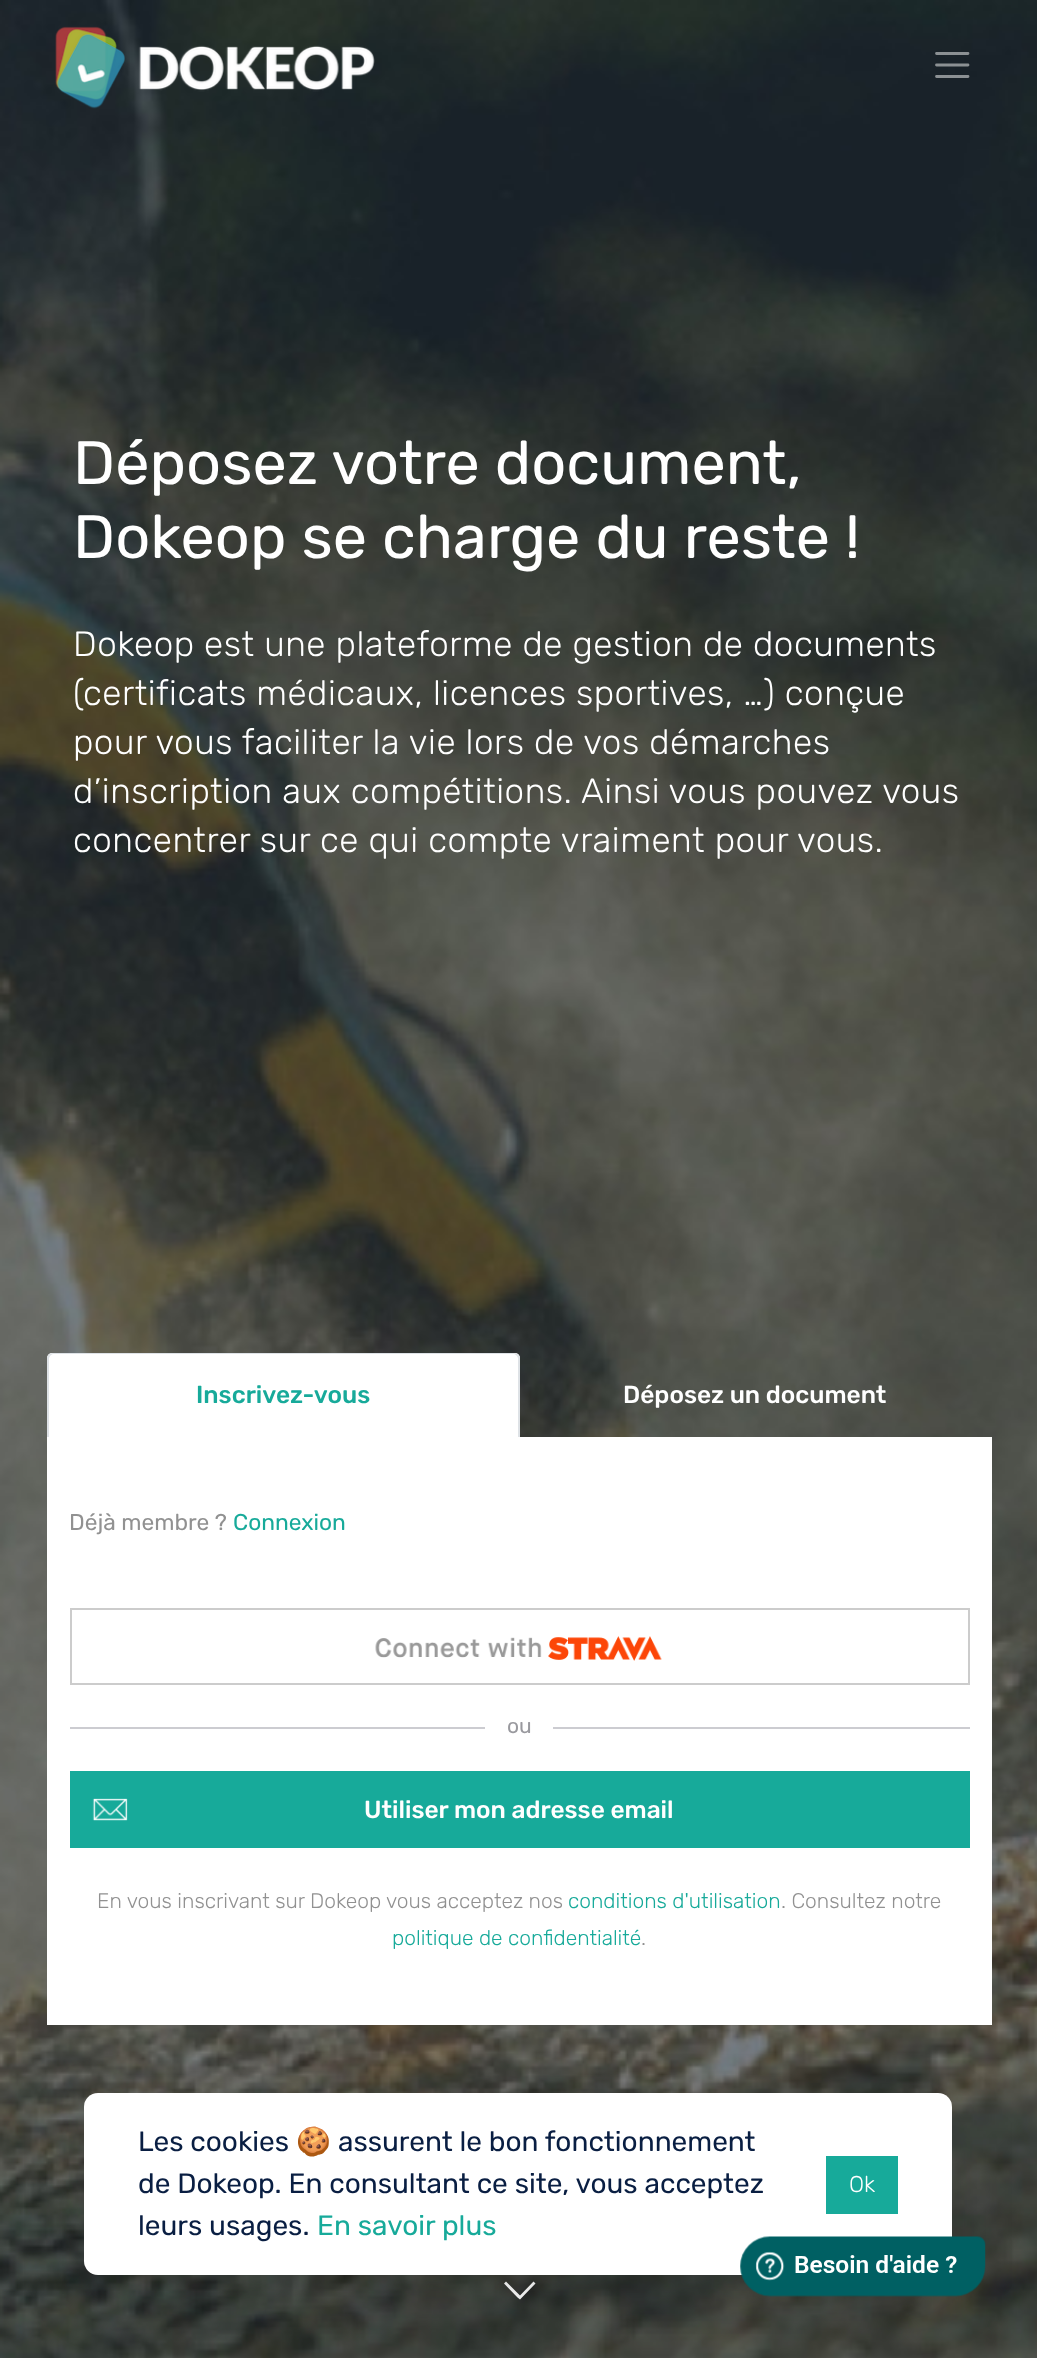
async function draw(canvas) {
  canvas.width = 1037
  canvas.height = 2358
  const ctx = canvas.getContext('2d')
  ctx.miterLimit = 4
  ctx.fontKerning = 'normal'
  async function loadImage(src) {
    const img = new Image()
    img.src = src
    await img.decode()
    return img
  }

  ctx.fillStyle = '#fff'
  ctx.fillRect(0, 0, 1037, 2358)
  ctx.drawImage(await loadImage('image1.png'), 0, 0, 1037, 2358)
  ctx.drawImage(await loadImage('image0.png'), 55, 26, 320, 83)
  ctx.beginPath()
  ctx.moveTo(936.5, 53.5)
  ctx.lineTo(968, 53.5)
  ctx.moveTo(936.5, 65)
  ctx.lineTo(968, 65)
  ctx.moveTo(936.5, 76.5)
  ctx.lineTo(968, 76.5)
  ctx.strokeStyle = '#8c9194'
  ctx.lineWidth = 2.8
  ctx.lineCap = 'round'
  ctx.stroke()
  ctx.font = '61.25px Rubik'
  ctx.fillText('Déposez votre document,', 73, 484)
  ctx.fillText('Dokeop se charge du reste !', 73, 558)
  ctx.letterSpacing = '0.53px'
  ctx.font = '300 35px Rubik'
  ctx.fillText('Dokeop est une plateforme de gestion de documents', 73, 656)
  ctx.fillText('(certificats médicaux, licences sportives, …) conçue', 73, 705)
  ctx.fillText('pour vous faciliter la vie lors de vos démarches', 73, 754)
  ctx.fillText('d’inscription aux compétitions. Ainsi vous pouvez vous', 73, 803)
  ctx.fillText('concentrer sur ce qui compte vraiment pour vous.', 73, 852)
  ctx.beginPath()
  ctx.roundRect(47, 1353, 473, 86, [5, 5, 0, 0])
  ctx.fill()
  ctx.fillStyle = '#dee2e6'
  ctx.beginPath()
  ctx.moveTo(53, 1353)
  ctx.bezierCurveTo(52, 1353, 50, 1354, 49, 1354)
  ctx.lineTo(50, 1356)
  ctx.bezierCurveTo(51, 1355, 52, 1354, 53, 1354)
  ctx.lineTo(514, 1354)
  ctx.bezierCurveTo(515, 1354, 516, 1355, 517, 1356)
  ctx.lineTo(518, 1354)
  ctx.bezierCurveTo(517, 1354, 516, 1353, 514, 1353)
  ctx.closePath()
  ctx.fill()
  ctx.beginPath()
  ctx.moveTo(518, 1354)
  ctx.lineTo(520, 1357)
  ctx.lineTo(520, 1438)
  ctx.lineTo(518, 1437)
  ctx.lineTo(518, 1358)
  ctx.lineTo(517, 1356)
  ctx.closePath()
  ctx.fill()
  ctx.beginPath()
  ctx.moveTo(47, 1357)
  ctx.lineTo(49, 1354)
  ctx.lineTo(50, 1356)
  ctx.lineTo(49, 1358)
  ctx.lineTo(49, 1437)
  ctx.lineTo(48, 1438)
  ctx.lineTo(47, 1438)
  ctx.closePath()
  ctx.fill()
  ctx.letterSpacing = '0px'
  ctx.font = '500 24.5px Rubik'
  ctx.fillStyle = '#17aa9a'
  ctx.fillText('Inscrivez-vous', 196, 1403)
  ctx.fillStyle = '#fff'
  ctx.fillText('Déposez un document', 623, 1403)
  ctx.fillRect(47, 1437, 945, 588)
  ctx.font = '22.75px Rubik'
  ctx.fillStyle = '#919191'
  ctx.fillText('Déjà membre ?', 69, 1530)
  ctx.fillStyle = '#17aa9a'
  ctx.fillText('Connexion', 233, 1530)
  ctx.strokeStyle = '#ccc'
  ctx.lineWidth = 2
  ctx.strokeRect(71, 1609, 898, 75)
  ctx.drawImage(await loadImage('image2.png'), 375, 1636, 287, 25)
  ctx.fillStyle = '#ccccd1'
  ctx.fillRect(70, 1727, 900, 2)
  ctx.fillStyle = '#fff'
  ctx.fillRect(485, 1727, 68, 2)
  ctx.font = '21px Rubik'
  ctx.fillStyle = '#99999e'
  ctx.fillText('ou', 507, 1733)
  ctx.fillStyle = '#17aa9a'
  ctx.fillRect(70, 1771, 900, 77)
  ctx.drawImage(await loadImage('image3.png'), 92, 1798, 36, 23)
  ctx.font = '500 24.5px Rubik'
  ctx.fillStyle = '#fff'
  ctx.fillText('Utiliser mon adresse email', 364, 1818)
  ctx.font = '300 21px Rubik'
  ctx.fillStyle = '#919191'
  ctx.fillText('En vous inscrivant sur Dokeop vous acceptez nos', 97, 1908)
  ctx.fillStyle = '#17aa9a'
  ctx.fillText('conditions d\'utilisation', 568, 1908)
  ctx.fillStyle = '#919191'
  ctx.fillText('. Consultez notre', 781, 1908)
  ctx.fillStyle = '#17aa9a'
  ctx.fillText('politique de confidentialité', 392, 1945)
  ctx.fillStyle = '#919191'
  ctx.fillText('.', 641, 1945)
  ctx.fillStyle = '#fff'
  ctx.beginPath()
  ctx.moveTo(517.5, 2297.5)
  ctx.lineTo(520, 2299.5)
  ctx.lineTo(535.5, 2283.5)
  ctx.lineTo(533.5, 2281.5)
  ctx.lineTo(520, 2295.5)
  ctx.lineTo(506, 2281.5)
  ctx.lineTo(504, 2283.5)
  ctx.closePath()
  ctx.fill()
  ctx.fillStyle = '#00000026'
  ctx.filter = 'blur(30px)'
  ctx.beginPath()
  ctx.roundRect(84, 2114, 868, 182, 14)
  ctx.fill()
  ctx.filter = 'none'
  ctx.fillStyle = '#fff'
  ctx.beginPath()
  ctx.roundRect(84, 2093, 868, 182, 14)
  ctx.fill()
  ctx.font = '28px Rubik'
  ctx.fillStyle = '#091e42'
  ctx.fillText('Les cookies', 138, 2151)
  ctx.font = '28px Noto Color Emoji'
  ctx.fillText('🍪', 296, 2151)
  ctx.font = '28px Rubik'
  ctx.fillText('assurent le bon fonctionnement', 338, 2151)
  ctx.fillText('de Dokeop. En consultant ce site, vous acceptez', 138, 2193)
  ctx.fillText('leurs usages.', 138, 2235)
  ctx.fillStyle = '#17aa9a'
  ctx.fillText('En savoir plus', 317, 2235)
  ctx.fillRect(826, 2156, 72, 58)
  ctx.font = '300 22.75px Rubik'
  ctx.fillStyle = '#fff'
  ctx.fillText('Ok', 849, 2192)
  ctx.drawImage(await loadImage('image4.png'), 740, 2236, 246, 61)
}

draw(document.querySelector('canvas'))
